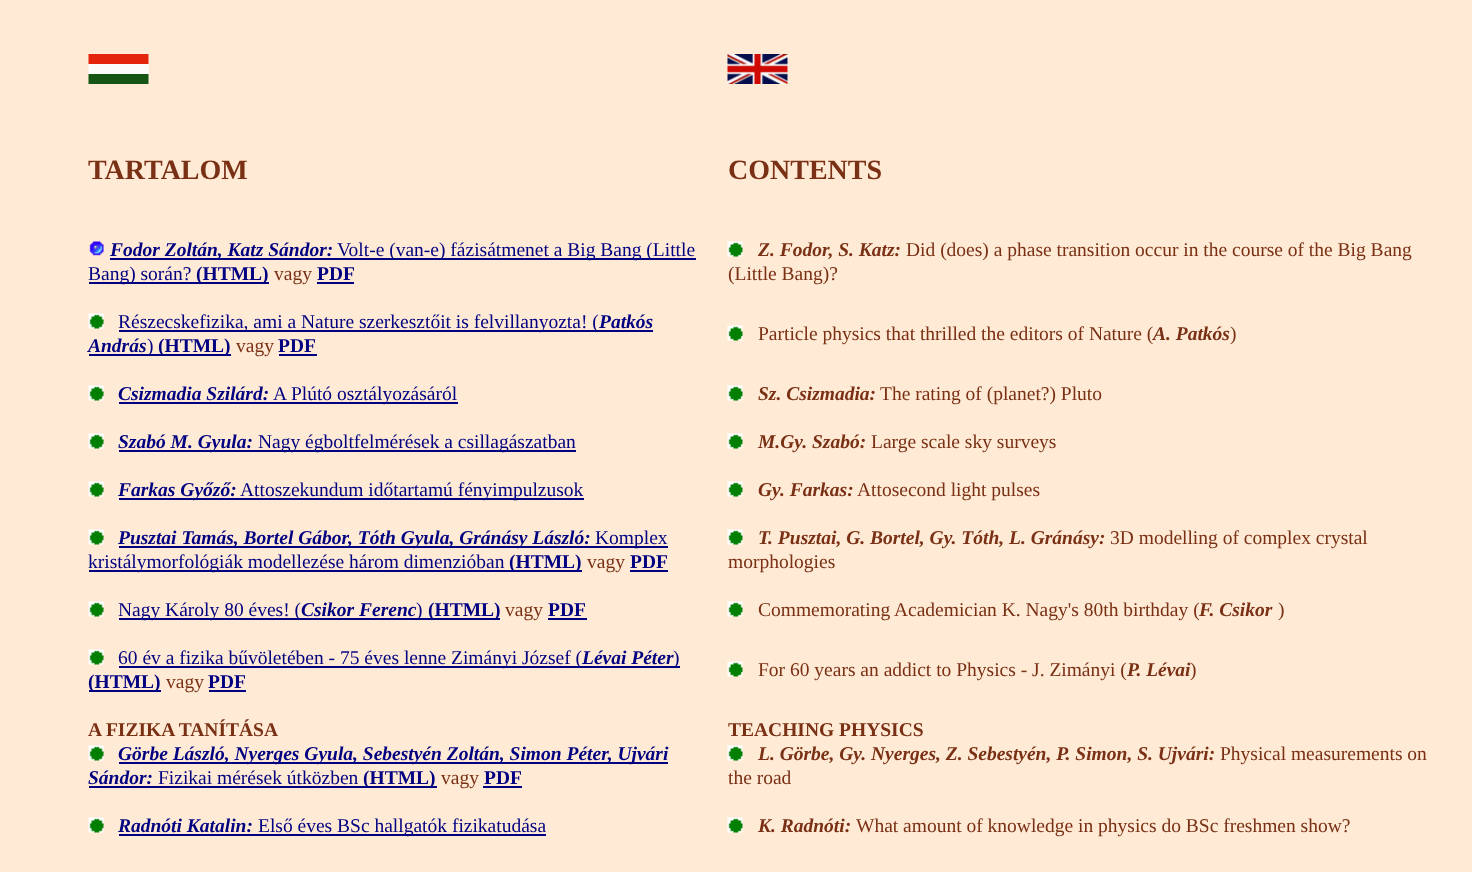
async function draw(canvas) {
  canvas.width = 1472
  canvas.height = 872
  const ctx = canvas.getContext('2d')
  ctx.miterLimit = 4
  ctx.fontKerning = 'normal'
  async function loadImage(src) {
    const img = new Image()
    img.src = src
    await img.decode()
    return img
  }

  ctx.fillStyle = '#ffead5'
  ctx.fillRect(0, 0, 1472, 872)
  ctx.drawImage(await loadImage('image0.png'), 88, 54, 61, 30)
  ctx.drawImage(await loadImage('image1.png'), 727, 54, 61, 30)
  ctx.font = 'bold 28px Liberation Serif'
  ctx.fillStyle = '#793014'
  ctx.fillText('TARTALOM', 88, 179)
  ctx.fillText('CONTENTS', 728, 179)
  ctx.drawImage(await loadImage('image2.png'), 89, 241, 15, 15)
  ctx.fillStyle = '#000080'
  ctx.fillRect(110, 258, 586, 2)
  ctx.font = 'italic bold 19.5px Liberation Serif'
  ctx.fillText('Fodor Zoltán, Katz Sándor:', 110, 256)
  ctx.font = '19.5px Liberation Serif'
  ctx.fillText('Volt-e (van-e) fázisátmenet a Big Bang (Little', 337, 256)
  ctx.fillRect(89, 282, 180, 2)
  ctx.fillText('Bang) során?', 88, 280)
  ctx.font = 'bold 19.5px Liberation Serif'
  ctx.fillText('(HTML)', 196, 280)
  ctx.font = '19.5px Liberation Serif'
  ctx.fillStyle = '#793014'
  ctx.fillText('vagy', 274, 280)
  ctx.fillStyle = '#000080'
  ctx.fillRect(317, 282, 37, 2)
  ctx.font = 'bold 19.5px Liberation Serif'
  ctx.fillText('PDF', 317, 280)
  ctx.drawImage(await loadImage('image3.png'), 727, 241, 16, 16)
  ctx.font = 'italic bold 19.5px Liberation Serif'
  ctx.fillStyle = '#793014'
  ctx.fillText('Z. Fodor, S. Katz:', 758, 256)
  ctx.font = '19.5px Liberation Serif'
  ctx.fillText('Did (does) a phase transition occur in the course of the Big Bang', 906, 256)
  ctx.fillText('(Little Bang)?', 728, 280)
  ctx.drawImage(await loadImage('image4.png'), 88, 313, 16, 16)
  ctx.fillStyle = '#000080'
  ctx.fillRect(119, 330, 534, 2)
  ctx.fillText('Részecskefizika, ami a Nature szerkesztőit is felvillanyozta! (', 118, 328)
  ctx.font = 'italic bold 19.5px Liberation Serif'
  ctx.fillText('Patkós', 599, 328)
  ctx.fillText('András', 88, 352)
  ctx.fillRect(89, 354, 142, 2)
  ctx.font = '19.5px Liberation Serif'
  ctx.fillText(')', 147, 352)
  ctx.font = 'bold 19.5px Liberation Serif'
  ctx.fillText('(HTML)', 158, 352)
  ctx.font = '19.5px Liberation Serif'
  ctx.fillStyle = '#793014'
  ctx.fillText('vagy', 236, 352)
  ctx.fillStyle = '#000080'
  ctx.fillRect(279, 354, 38, 2)
  ctx.font = 'bold 19.5px Liberation Serif'
  ctx.fillText('PDF', 278, 352)
  ctx.drawImage(await loadImage('image3.png'), 727, 325, 16, 16)
  ctx.font = '19.5px Liberation Serif'
  ctx.fillStyle = '#793014'
  ctx.fillText('Particle physics that thrilled the editors of Nature (', 758, 340)
  ctx.font = 'italic bold 19.5px Liberation Serif'
  ctx.fillText('A. Patkós', 1153, 340)
  ctx.font = '19.5px Liberation Serif'
  ctx.fillText(')', 1230, 340)
  ctx.drawImage(await loadImage('image4.png'), 88, 385, 16, 16)
  ctx.font = 'italic bold 19.5px Liberation Serif'
  ctx.fillStyle = '#000080'
  ctx.fillText('Csizmadia Szilárd:', 118, 400)
  ctx.fillRect(119, 402, 339, 2)
  ctx.font = '19.5px Liberation Serif'
  ctx.fillText('A Plútó osztályozásáról', 273, 400)
  ctx.drawImage(await loadImage('image3.png'), 727, 385, 16, 16)
  ctx.font = 'italic bold 19.5px Liberation Serif'
  ctx.fillStyle = '#793014'
  ctx.fillText('Sz. Csizmadia:', 758, 400)
  ctx.font = '19.5px Liberation Serif'
  ctx.fillText('The rating of (planet?) Pluto', 880, 400)
  ctx.drawImage(await loadImage('image4.png'), 88, 433, 16, 16)
  ctx.fillStyle = '#000080'
  ctx.fillRect(119, 450, 457, 2)
  ctx.font = 'italic bold 19.5px Liberation Serif'
  ctx.fillText('Szabó M. Gyula:', 118, 448)
  ctx.font = '19.5px Liberation Serif'
  ctx.fillText('Nagy égboltfelmérések a csillagászatban', 258, 448)
  ctx.drawImage(await loadImage('image3.png'), 727, 433, 16, 16)
  ctx.font = 'italic bold 19.5px Liberation Serif'
  ctx.fillStyle = '#793014'
  ctx.fillText('M.Gy. Szabó:', 758, 448)
  ctx.font = '19.5px Liberation Serif'
  ctx.fillText('Large scale sky surveys', 871, 448)
  ctx.drawImage(await loadImage('image4.png'), 88, 481, 16, 16)
  ctx.fillStyle = '#000080'
  ctx.fillRect(119, 498, 465, 2)
  ctx.font = 'italic bold 19.5px Liberation Serif'
  ctx.fillText('Farkas Győző:', 118, 496)
  ctx.font = '19.5px Liberation Serif'
  ctx.fillText('Attoszekundum időtartamú fényimpulzusok', 240, 496)
  ctx.drawImage(await loadImage('image3.png'), 727, 481, 16, 16)
  ctx.font = 'italic bold 19.5px Liberation Serif'
  ctx.fillStyle = '#793014'
  ctx.fillText('Gy. Farkas:', 758, 496)
  ctx.font = '19.5px Liberation Serif'
  ctx.fillText('Attosecond light pulses', 857, 496)
  ctx.drawImage(await loadImage('image4.png'), 88, 529, 16, 16)
  ctx.fillStyle = '#000080'
  ctx.fillRect(119, 546, 549, 2)
  ctx.font = 'italic bold 19.5px Liberation Serif'
  ctx.fillText('Pusztai Tamás, Bortel Gábor, Tóth Gyula, Gránásy László:', 118, 544)
  ctx.font = '19.5px Liberation Serif'
  ctx.fillText('Komplex', 595, 544)
  ctx.fillRect(89, 570, 493, 2)
  ctx.fillText('kristálymorfológiák modellezése három dimenzióban', 88, 568)
  ctx.font = 'bold 19.5px Liberation Serif'
  ctx.fillText('(HTML)', 509, 568)
  ctx.font = '19.5px Liberation Serif'
  ctx.fillStyle = '#793014'
  ctx.fillText('vagy', 587, 568)
  ctx.fillStyle = '#000080'
  ctx.fillRect(630, 570, 38, 2)
  ctx.font = 'bold 19.5px Liberation Serif'
  ctx.fillText('PDF', 630, 568)
  ctx.drawImage(await loadImage('image3.png'), 727, 529, 16, 16)
  ctx.font = 'italic bold 19.5px Liberation Serif'
  ctx.fillStyle = '#793014'
  ctx.fillText('T. Pusztai, G. Bortel, Gy. Tóth, L. Gránásy:', 758, 544)
  ctx.font = '19.5px Liberation Serif'
  ctx.fillText('3D modelling of complex crystal', 1110, 544)
  ctx.fillText('morphologies', 728, 568)
  ctx.drawImage(await loadImage('image4.png'), 88, 601, 16, 16)
  ctx.fillStyle = '#000080'
  ctx.fillRect(119, 618, 381, 2)
  ctx.fillText('Nagy Károly 80 éves! (', 118, 616)
  ctx.font = 'italic bold 19.5px Liberation Serif'
  ctx.fillText('Csikor Ferenc', 301, 616)
  ctx.font = '19.5px Liberation Serif'
  ctx.fillText(')', 416, 616)
  ctx.font = 'bold 19.5px Liberation Serif'
  ctx.fillText('(HTML)', 428, 616)
  ctx.font = '19.5px Liberation Serif'
  ctx.fillStyle = '#793014'
  ctx.fillText('vagy', 505, 616)
  ctx.fillStyle = '#000080'
  ctx.fillRect(548, 618, 39, 2)
  ctx.font = 'bold 19.5px Liberation Serif'
  ctx.fillText('PDF', 548, 616)
  ctx.drawImage(await loadImage('image3.png'), 727, 601, 16, 16)
  ctx.font = '19.5px Liberation Serif'
  ctx.fillStyle = '#793014'
  ctx.fillText('Commemorating Academician K. Nagy\'s 80th birthday (', 758, 616)
  ctx.font = 'italic bold 19.5px Liberation Serif'
  ctx.fillText('F. Csikor', 1199, 616)
  ctx.font = '19.5px Liberation Serif'
  ctx.fillText(')', 1278, 616)
  ctx.drawImage(await loadImage('image4.png'), 88, 649, 16, 16)
  ctx.fillStyle = '#000080'
  ctx.fillRect(119, 666, 561, 2)
  ctx.fillText('60 év a fizika bűvöletében - 75 éves lenne Zimányi József (', 118, 664)
  ctx.font = 'italic bold 19.5px Liberation Serif'
  ctx.fillText('Lévai Péter', 582, 664)
  ctx.font = '19.5px Liberation Serif'
  ctx.fillText(')', 673, 664)
  ctx.fillRect(89, 690, 72, 2)
  ctx.font = 'bold 19.5px Liberation Serif'
  ctx.fillText('(HTML)', 88, 688)
  ctx.font = '19.5px Liberation Serif'
  ctx.fillStyle = '#793014'
  ctx.fillText('vagy', 166, 688)
  ctx.fillStyle = '#000080'
  ctx.fillRect(209, 690, 37, 2)
  ctx.font = 'bold 19.5px Liberation Serif'
  ctx.fillText('PDF', 208, 688)
  ctx.drawImage(await loadImage('image3.png'), 727, 661, 16, 16)
  ctx.font = '19.5px Liberation Serif'
  ctx.fillStyle = '#793014'
  ctx.fillText('For 60 years an addict to Physics - J. Zimányi (', 758, 676)
  ctx.font = 'italic bold 19.5px Liberation Serif'
  ctx.fillText('P. Lévai', 1127, 676)
  ctx.font = '19.5px Liberation Serif'
  ctx.fillText(')', 1190, 676)
  ctx.font = 'bold 19.5px Liberation Serif'
  ctx.fillText('A FIZIKA TANÍTÁSA', 88, 736)
  ctx.drawImage(await loadImage('image4.png'), 88, 745, 16, 16)
  ctx.fillStyle = '#000080'
  ctx.fillRect(119, 762, 549, 2)
  ctx.font = 'italic bold 19.5px Liberation Serif'
  ctx.fillText('Görbe László, Nyerges Gyula, Sebestyén Zoltán, Simon Péter, Ujvári', 118, 760)
  ctx.fillText('Sándor:', 88, 784)
  ctx.font = '19.5px Liberation Serif'
  ctx.fillText('Fizikai mérések útközben', 158, 784)
  ctx.fillRect(89, 786, 348, 2)
  ctx.font = 'bold 19.5px Liberation Serif'
  ctx.fillText('(HTML)', 363, 784)
  ctx.font = '19.5px Liberation Serif'
  ctx.fillStyle = '#793014'
  ctx.fillText('vagy', 441, 784)
  ctx.fillStyle = '#000080'
  ctx.fillRect(483, 786, 39, 2)
  ctx.font = 'bold 19.5px Liberation Serif'
  ctx.fillText('PDF', 484, 784)
  ctx.fillStyle = '#793014'
  ctx.fillText('TEACHING PHYSICS', 728, 736)
  ctx.drawImage(await loadImage('image3.png'), 727, 745, 16, 16)
  ctx.font = 'italic bold 19.5px Liberation Serif'
  ctx.fillText('L. Görbe, Gy. Nyerges, Z. Sebestyén, P. Simon, S. Ujvári:', 758, 760)
  ctx.font = '19.5px Liberation Serif'
  ctx.fillText('Physical measurements on', 1220, 760)
  ctx.fillText('the road', 728, 784)
  ctx.drawImage(await loadImage('image4.png'), 88, 817, 16, 16)
  ctx.font = 'italic bold 19.5px Liberation Serif'
  ctx.fillStyle = '#000080'
  ctx.fillText('Radnóti Katalin:', 118, 832)
  ctx.fillRect(119, 834, 427, 2)
  ctx.font = '19.5px Liberation Serif'
  ctx.fillText('Első éves BSc hallgatók fizikatudása', 258, 832)
  ctx.drawImage(await loadImage('image3.png'), 727, 817, 16, 16)
  ctx.font = 'italic bold 19.5px Liberation Serif'
  ctx.fillStyle = '#793014'
  ctx.fillText('K. Radnóti:', 758, 832)
  ctx.font = '19.5px Liberation Serif'
  ctx.fillText('What amount of knowledge in physics do BSc freshmen show?', 856, 832)
}

draw(document.querySelector('canvas'))
